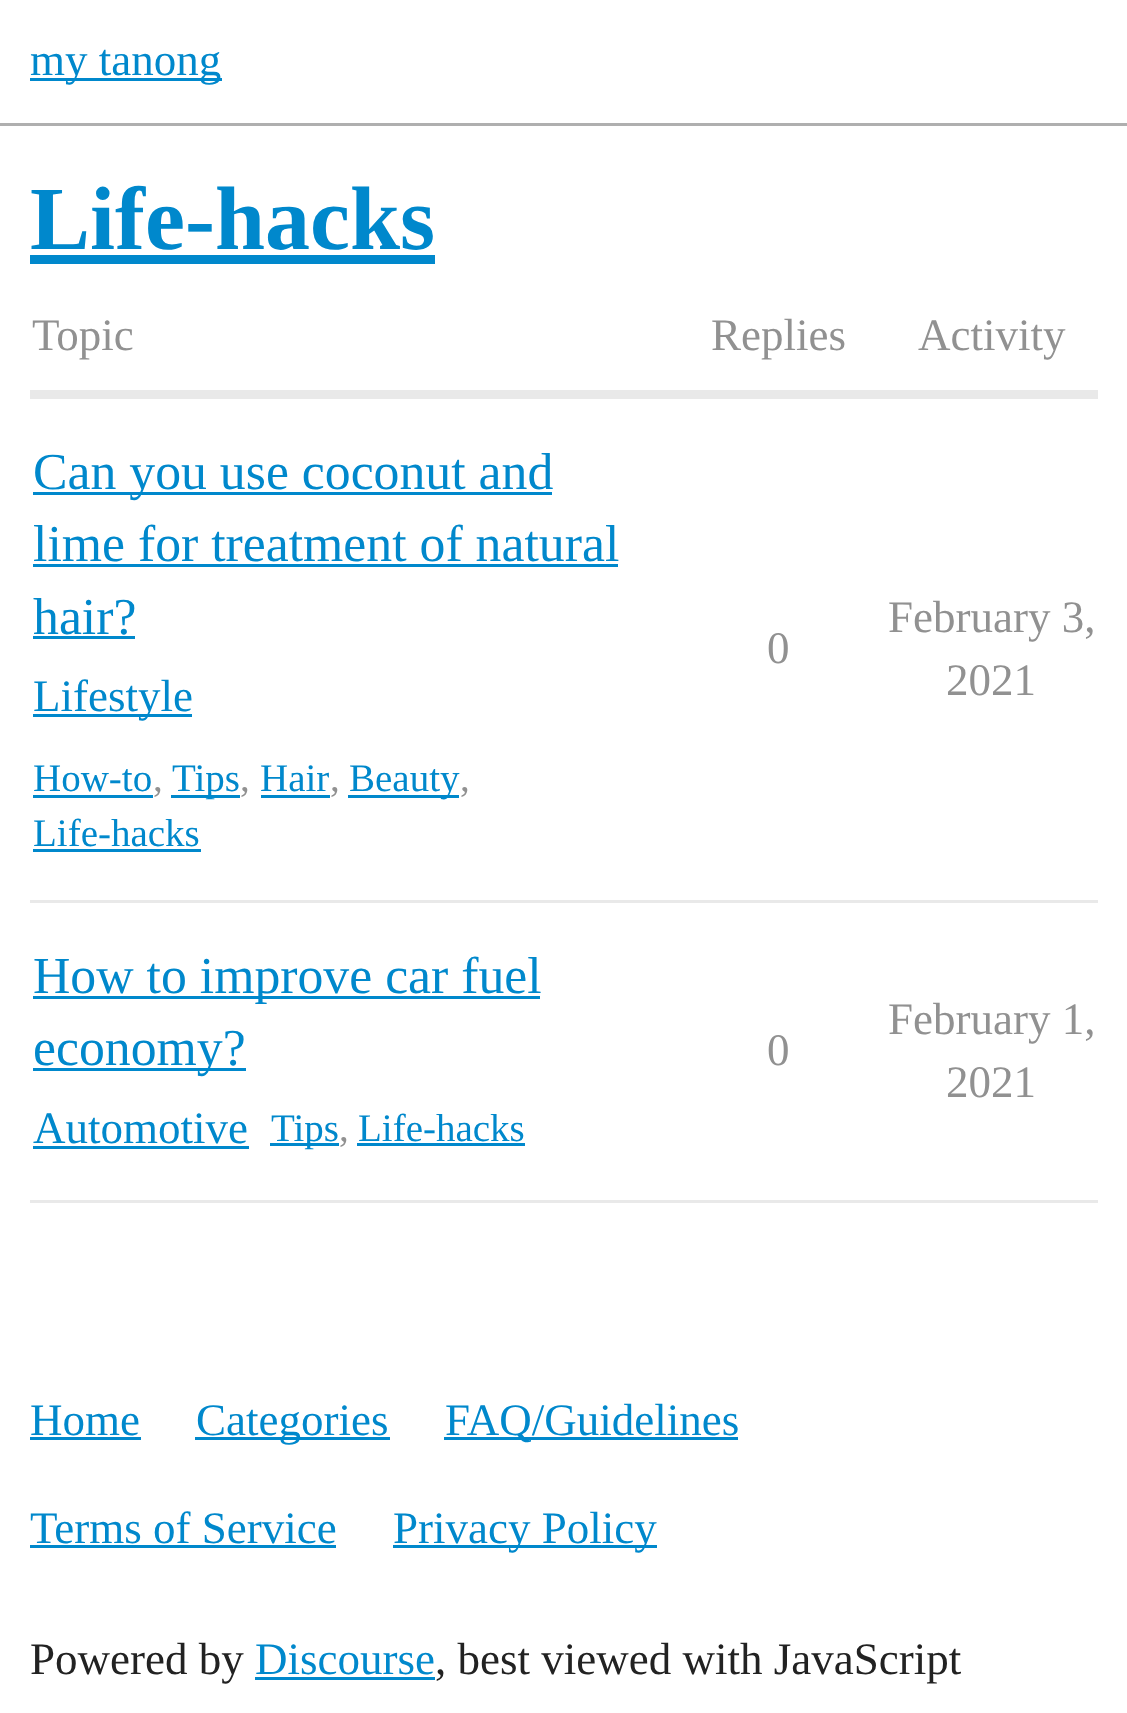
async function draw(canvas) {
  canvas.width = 1127
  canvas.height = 1713
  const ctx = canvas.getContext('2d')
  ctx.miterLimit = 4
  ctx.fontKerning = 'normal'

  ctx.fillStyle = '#fff'
  ctx.fillRect(0, 0, 1127, 1713)
  ctx.fillStyle = '#afafaf'
  ctx.fillRect(0, 123, 1127, 3)
  ctx.fillStyle = '#08c'
  ctx.fillRect(30, 78, 192, 3)
  ctx.font = '45px Liberation Serif'
  ctx.fillText('my tanong', 30, 75)
  ctx.font = 'bold 90px Liberation Serif'
  ctx.fillText('Life-hacks', 30, 249)
  ctx.fillRect(30, 255, 405, 9)
  ctx.font = '45px Liberation Serif'
  ctx.fillStyle = '#919191'
  ctx.fillText('Topic', 32, 350)
  ctx.fillText('Replies', 711, 350)
  ctx.fillText('Activity', 918, 350)
  ctx.fillStyle = '#e9e9e9'
  ctx.fillRect(30, 390, 1068, 9)
  ctx.fillRect(30, 900, 1068, 3)
  ctx.fillStyle = '#08c'
  ctx.fillRect(33, 492, 519, 3)
  ctx.font = '51.75px Liberation Serif'
  ctx.fillText('Can you use coconut and', 33, 489)
  ctx.fillText('lime for treatment of natural', 33, 561)
  ctx.fillRect(33, 564, 585, 3)
  ctx.fillText('hair?', 33, 634)
  ctx.fillRect(33, 636, 102, 3)
  ctx.fillRect(33, 714, 159, 3)
  ctx.font = '45px Liberation Serif'
  ctx.fillText('Lifestyle', 33, 711)
  ctx.font = '39px Liberation Serif'
  ctx.fillText('How-to', 33, 791)
  ctx.fillRect(33, 795, 120, 3)
  ctx.fillStyle = '#919191'
  ctx.fillText(',', 153, 791)
  ctx.fillStyle = '#08c'
  ctx.fillRect(171, 795, 69, 3)
  ctx.fillText('Tips', 172, 791)
  ctx.fillStyle = '#919191'
  ctx.fillText(',', 240, 791)
  ctx.fillStyle = '#08c'
  ctx.fillText('Hair', 260, 791)
  ctx.fillRect(261, 795, 69, 3)
  ctx.fillStyle = '#919191'
  ctx.fillText(',', 330, 791)
  ctx.fillStyle = '#08c'
  ctx.fillRect(348, 795, 111, 3)
  ctx.fillText('Beauty', 349, 791)
  ctx.fillStyle = '#919191'
  ctx.fillText(',', 460, 791)
  ctx.fillStyle = '#08c'
  ctx.fillText('Life-hacks', 33, 846)
  ctx.fillRect(33, 849, 168, 3)
  ctx.font = '45px Liberation Serif'
  ctx.fillStyle = '#919191'
  ctx.fillText('0', 767, 663)
  ctx.fillText('February 3,', 888, 632)
  ctx.fillText('2021', 946, 695)
  ctx.fillStyle = '#e9e9e9'
  ctx.fillRect(30, 1200, 1068, 3)
  ctx.fillStyle = '#08c'
  ctx.fillRect(33, 996, 507, 3)
  ctx.font = '51.75px Liberation Serif'
  ctx.fillText('How to improve car fuel', 33, 993)
  ctx.fillRect(33, 1068, 213, 3)
  ctx.fillText('economy?', 33, 1065)
  ctx.font = '45px Liberation Serif'
  ctx.fillText('Automotive', 33, 1143)
  ctx.fillRect(33, 1146, 216, 3)
  ctx.fillRect(270, 1143, 69, 3)
  ctx.font = '39px Liberation Serif'
  ctx.fillText('Tips', 271, 1141)
  ctx.fillStyle = '#919191'
  ctx.fillText(',', 339, 1141)
  ctx.fillStyle = '#08c'
  ctx.fillText('Life-hacks', 358, 1141)
  ctx.fillRect(357, 1143, 168, 3)
  ctx.font = '45px Liberation Serif'
  ctx.fillStyle = '#919191'
  ctx.fillText('0', 767, 1065)
  ctx.fillText('February 1,', 888, 1034)
  ctx.fillText('2021', 946, 1097)
  ctx.fillStyle = '#08c'
  ctx.fillText('Home', 30, 1435)
  ctx.fillRect(30, 1437, 111, 3)
  ctx.fillRect(195, 1437, 195, 3)
  ctx.fillText('Categories', 196, 1435)
  ctx.fillRect(444, 1437, 294, 3)
  ctx.fillText('FAQ/Guidelines', 445, 1435)
  ctx.fillText('Terms of Service', 30, 1543)
  ctx.fillRect(30, 1545, 306, 3)
  ctx.fillRect(393, 1545, 264, 3)
  ctx.fillText('Privacy Policy', 393, 1543)
  ctx.fillStyle = '#222'
  ctx.fillText('Powered by', 30, 1674)
  ctx.fillStyle = '#08c'
  ctx.fillText('Discourse', 255, 1674)
  ctx.fillRect(255, 1677, 180, 3)
  ctx.fillStyle = '#222'
  ctx.fillText(', best viewed with JavaScript', 435, 1674)
}

draw(document.querySelector('canvas'))
